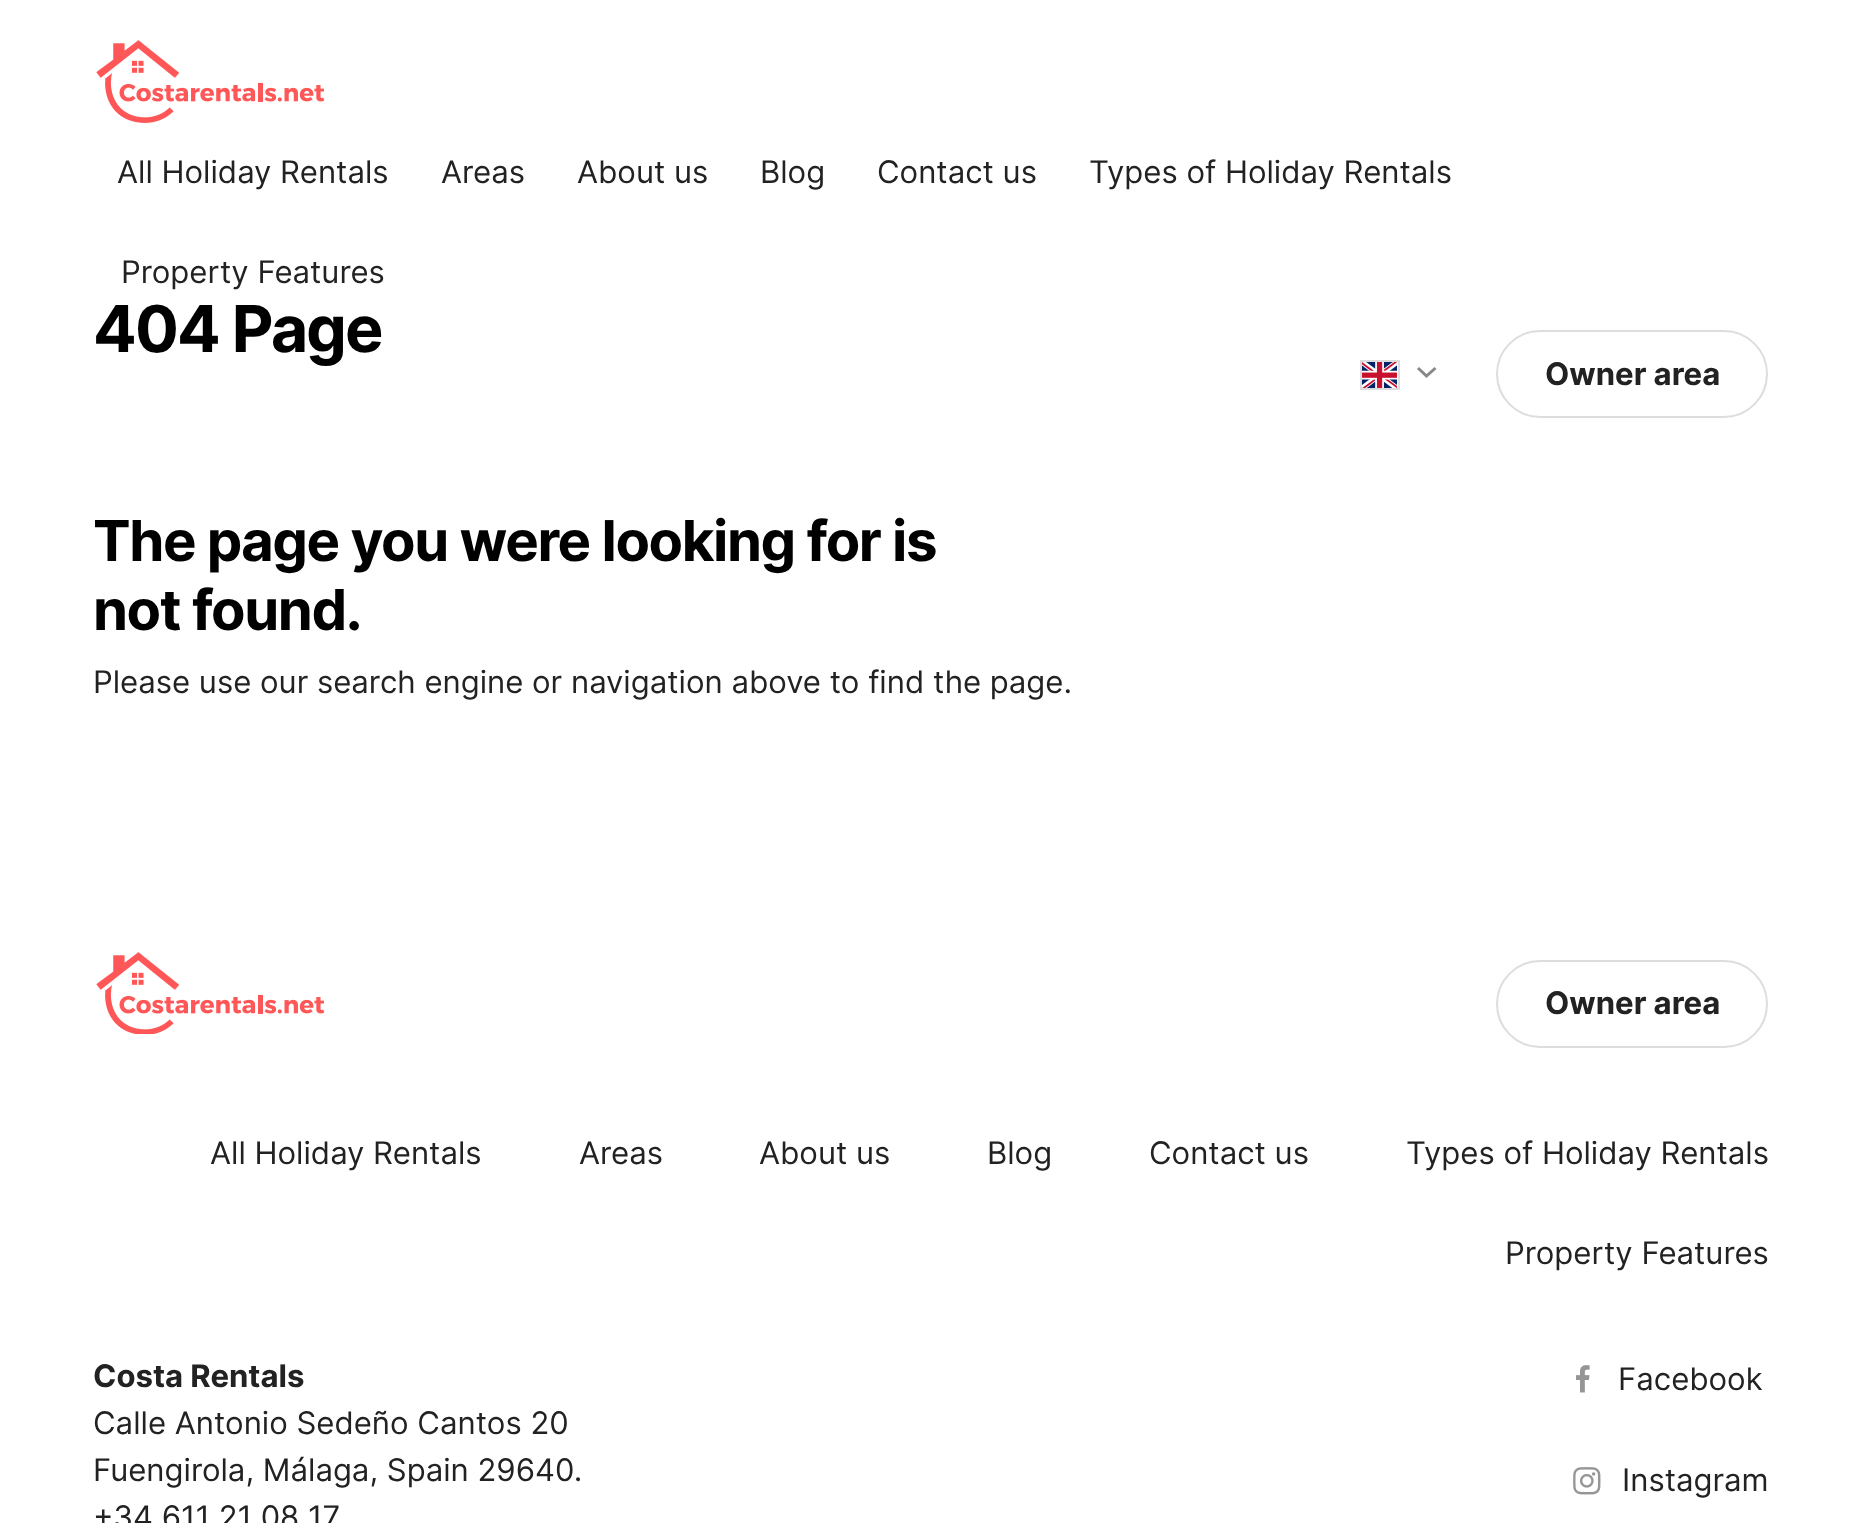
async function draw(canvas) {
  canvas.width = 1862
  canvas.height = 1523
  const ctx = canvas.getContext('2d')
  ctx.miterLimit = 4
  ctx.fontKerning = 'normal'
  async function loadImage(src) {
    const img = new Image()
    img.src = src
    await img.decode()
    return img
  }

  ctx.fillStyle = '#fff'
  ctx.fillRect(0, 0, 1862, 1523)
  ctx.drawImage(await loadImage('image0.png'), 96, 40, 229, 83)
  ctx.font = '31.1px Inter'
  ctx.fillStyle = '#222'
  ctx.fillText('All Holiday Rentals', 117, 183)
  ctx.fillText('Areas', 441, 183)
  ctx.fillText('About us', 577, 183)
  ctx.fillText('Blog', 760, 183)
  ctx.fillText('Contact us', 877, 183)
  ctx.fillText('Types of Holiday Rentals', 1089, 183)
  ctx.fillText('Property Features', 121, 283)
  ctx.drawImage(await loadImage('image1.png'), 1362, 362, 35, 26)
  ctx.strokeStyle = '#ddd'
  ctx.lineWidth = 2
  ctx.strokeRect(1361, 361, 38, 28)
  ctx.beginPath()
  ctx.moveTo(1418, 368)
  ctx.lineTo(1426.5, 376)
  ctx.lineTo(1435.5, 368)
  ctx.strokeStyle = '#888'
  ctx.lineWidth = 3
  ctx.stroke()
  ctx.beginPath()
  ctx.roundRect(1497, 331, 270, 86, 43)
  ctx.strokeStyle = '#ddd'
  ctx.lineWidth = 2
  ctx.stroke()
  ctx.font = 'bold 31.1px Inter'
  ctx.fillText('Owner area', 1545, 385)
  ctx.letterSpacing = '-2px'
  ctx.font = 'bold 64.5px Inter'
  ctx.fillStyle = '#000'
  ctx.fillText('404 Page', 93, 352)
  ctx.letterSpacing = '-1.4px'
  ctx.font = 'bold 56.3px Inter'
  ctx.fillText('The page you were looking for is', 93, 561)
  ctx.fillText('not found.', 93, 630)
  ctx.letterSpacing = '0px'
  ctx.font = '31.1px Inter'
  ctx.fillStyle = '#222'
  ctx.fillText('Please use our search engine or navigation above to find the page.', 93, 693)
  ctx.drawImage(await loadImage('image2.png'), 96, 952, 229, 82)
  ctx.beginPath()
  ctx.roundRect(1497, 961, 270, 86, 43)
  ctx.stroke()
  ctx.font = 'bold 31.1px Inter'
  ctx.fillText('Owner area', 1545, 1014)
  ctx.font = '31.1px Inter'
  ctx.fillText('All Holiday Rentals', 210, 1164)
  ctx.fillText('Areas', 579, 1164)
  ctx.fillText('About us', 759, 1164)
  ctx.fillText('Blog', 987, 1164)
  ctx.fillText('Contact us', 1149, 1164)
  ctx.fillText('Types of Holiday Rentals', 1406, 1164)
  ctx.fillText('Property Features', 1505, 1264)
  ctx.font = 'bold 31.1px Inter'
  ctx.fillText('Costa Rentals', 93, 1387)
  ctx.font = '31.1px Inter'
  ctx.fillText('Calle Antonio Sedeño Cantos 20', 93, 1434)
  ctx.fillText('Fuengirola, Málaga, Spain 29640.', 93, 1481)
  ctx.fillText('+34 611 21 08 17', 93, 1528)
  ctx.drawImage(await loadImage('image3.png'), 1576, 1365, 14, 28)
  ctx.fillText('Facebook', 1618, 1390)
  ctx.drawImage(await loadImage('image4.png'), 1573, 1467, 28, 28)
  ctx.fillText('Instagram', 1622, 1491)
}

draw(document.querySelector('canvas'))
